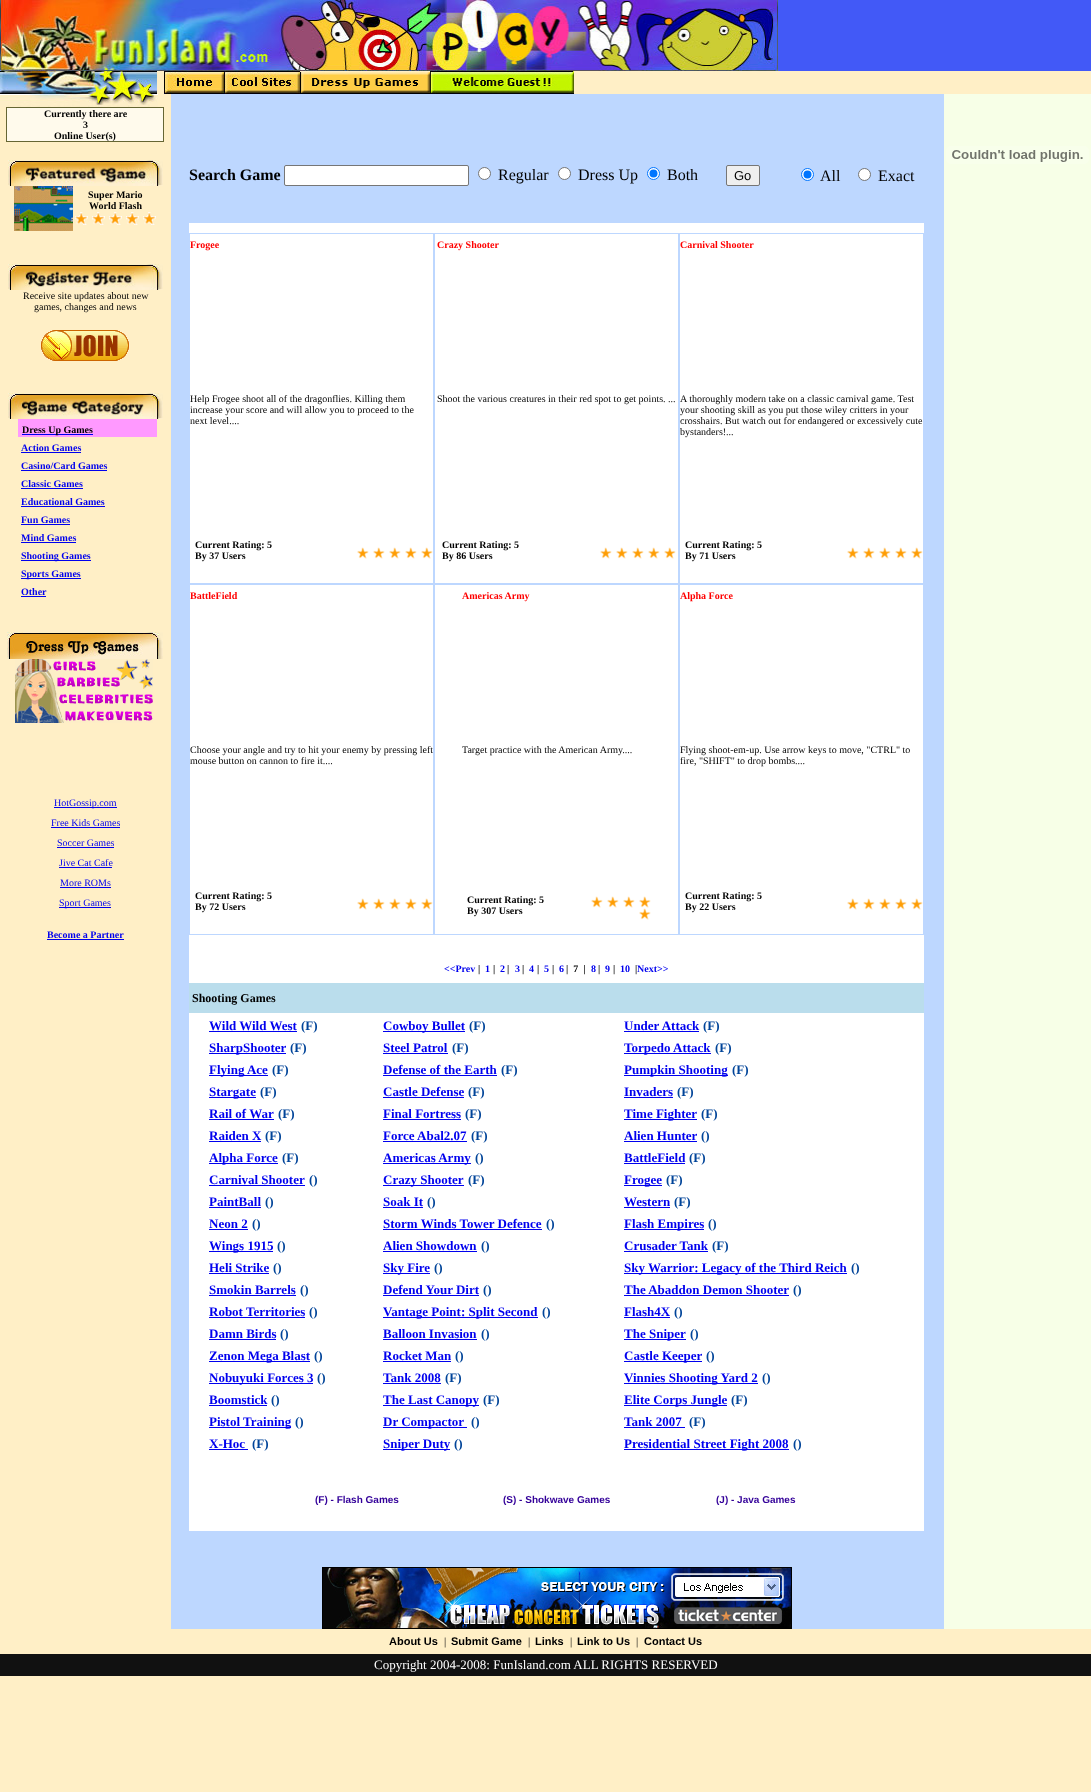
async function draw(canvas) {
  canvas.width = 1091
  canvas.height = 1792
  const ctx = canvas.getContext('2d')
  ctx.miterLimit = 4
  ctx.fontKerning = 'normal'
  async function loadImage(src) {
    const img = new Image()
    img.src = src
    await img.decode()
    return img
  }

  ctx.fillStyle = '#ffefc6'
  ctx.fillRect(0, 0, 1091, 1792)
  ctx.fillStyle = '#4259f7'
  ctx.fillRect(778, 0, 313, 71)
  ctx.drawImage(await loadImage('image0.png'), 0, 0, 778, 71)
  ctx.drawImage(await loadImage('image1.png'), 0, 71, 157, 23)
  ctx.drawImage(await loadImage('image2.png'), 164, 71, 60, 23)
  ctx.drawImage(await loadImage('image3.png'), 224, 71, 76, 23)
  ctx.drawImage(await loadImage('image4.png'), 300, 72, 130, 22)
  ctx.drawImage(await loadImage('image5.png'), 430, 71, 144, 23)
  ctx.drawImage(await loadImage('image6.png'), 0, 94, 158, 13)
  ctx.fillStyle = '#663'
  ctx.fillRect(6, 107, 158, 1)
  ctx.fillRect(163, 107, 1, 35)
  ctx.fillRect(6, 141, 158, 1)
  ctx.fillRect(6, 107, 1, 35)
  ctx.fillStyle = '#fffaec'
  ctx.fillRect(7, 108, 156, 33)
  ctx.font = 'bold 10px Liberation Serif'
  ctx.fillStyle = '#000'
  ctx.fillText('Currently there are', 44, 117)
  ctx.fillText('3', 83, 128)
  ctx.fillText('Online User(s)', 54, 139)
  ctx.drawImage(await loadImage('image7.png'), 8, 160, 155, 26)
  ctx.drawImage(await loadImage('image8.png'), 14, 186, 59, 45)
  ctx.fillText('Super Mario', 88, 198)
  ctx.fillText('World Flash', 89, 209)
  ctx.drawImage(await loadImage('image9.png'), 75, 212, 13, 13)
  ctx.drawImage(await loadImage('image9.png'), 92, 212, 13, 13)
  ctx.drawImage(await loadImage('image9.png'), 109, 212, 13, 13)
  ctx.drawImage(await loadImage('image10.png'), 126, 212, 13, 13)
  ctx.drawImage(await loadImage('image9.png'), 143, 212, 13, 13)
  ctx.drawImage(await loadImage('image11.png'), 8, 264, 155, 26)
  ctx.font = '10px Liberation Serif'
  ctx.fillText('Receive site updates about new', 23, 299)
  ctx.fillText('games, changes and news', 34, 310)
  ctx.drawImage(await loadImage('image12.png'), 41, 330, 88, 31)
  ctx.drawImage(await loadImage('image13.png'), 8, 393, 155, 26)
  ctx.fillStyle = '#f9f'
  ctx.fillRect(18, 419, 139, 18)
  ctx.fillStyle = '#00e'
  ctx.fillRect(22, 434, 71, 1)
  ctx.font = 'bold 10px Liberation Serif'
  ctx.fillStyle = '#000'
  ctx.fillText('Dress Up Games', 22, 433)
  ctx.fillStyle = '#00e'
  ctx.fillText('Action Games', 21, 451)
  ctx.fillRect(21, 452, 60, 1)
  ctx.fillText('Casino/Card Games', 21, 469)
  ctx.fillRect(21, 470, 86, 1)
  ctx.fillText('Classic Games', 21, 487)
  ctx.fillRect(21, 488, 62, 1)
  ctx.fillText('Educational Games', 21, 505)
  ctx.fillRect(21, 506, 84, 1)
  ctx.fillText('Fun Games', 21, 523)
  ctx.fillRect(21, 524, 49, 1)
  ctx.fillText('Mind Games', 21, 541)
  ctx.fillRect(21, 542, 55, 1)
  ctx.fillRect(21, 560, 70, 1)
  ctx.fillText('Shooting Games', 21, 559)
  ctx.fillRect(21, 578, 60, 1)
  ctx.fillText('Sports Games', 21, 577)
  ctx.fillText('Other', 21, 595)
  ctx.fillRect(21, 596, 25, 1)
  ctx.drawImage(await loadImage('image14.png'), 7, 632, 156, 27)
  ctx.drawImage(await loadImage('image15.png'), 15, 659, 138, 64)
  ctx.fillRect(54, 807, 63, 1)
  ctx.font = '10px Liberation Serif'
  ctx.fillText('HotGossip.com', 54, 806)
  ctx.fillText('Free Kids Games', 51, 826)
  ctx.fillRect(51, 827, 69, 1)
  ctx.fillText('Soccer Games', 57, 846)
  ctx.fillRect(57, 847, 57, 1)
  ctx.fillText('Jive Cat Cafe', 59, 866)
  ctx.fillRect(59, 867, 53, 1)
  ctx.fillText('More ROMs', 60, 886)
  ctx.fillRect(60, 887, 51, 1)
  ctx.fillRect(59, 907, 52, 1)
  ctx.fillText('Sport Games', 59, 906)
  ctx.font = 'bold 10px Liberation Serif'
  ctx.fillText('Become a Partner', 47, 938)
  ctx.fillRect(47, 939, 77, 1)
  ctx.fillStyle = '#bdd7ff'
  ctx.fillRect(171, 94, 773, 1535)
  ctx.font = 'bold 16px Liberation Serif'
  ctx.fillStyle = '#000'
  ctx.fillText('Search Game', 189, 180)
  ctx.fillStyle = '#fff'
  ctx.beginPath()
  ctx.roundRect(284.5, 165.5, 184, 20, 1.5)
  ctx.fill()
  ctx.strokeStyle = '#767676'
  ctx.stroke()
  ctx.beginPath()
  ctx.arc(484.5, 173.5, 6, 0, 2 * Math.PI)
  ctx.fill()
  ctx.stroke()
  ctx.font = '16px Liberation Serif'
  ctx.fillStyle = '#000'
  ctx.fillText('Regular', 498, 180)
  ctx.fillStyle = '#fff'
  ctx.beginPath()
  ctx.arc(564.5, 173.5, 6, 0, 2 * Math.PI)
  ctx.fill()
  ctx.stroke()
  ctx.fillStyle = '#000'
  ctx.fillText('Dress Up', 578, 180)
  ctx.fillStyle = '#fff'
  ctx.beginPath()
  ctx.arc(653.5, 173.5, 6, 0, 2 * Math.PI)
  ctx.fill()
  ctx.strokeStyle = '#0075ff'
  ctx.stroke()
  ctx.fillStyle = '#0075ff'
  ctx.beginPath()
  ctx.arc(653.5, 173.5, 4, 0, 2 * Math.PI)
  ctx.fill()
  ctx.fillStyle = '#000'
  ctx.fillText('Both', 667, 180)
  ctx.fillStyle = '#efefef'
  ctx.beginPath()
  ctx.roundRect(726.5, 165.5, 33, 20, 1.5)
  ctx.fill()
  ctx.strokeStyle = '#767676'
  ctx.stroke()
  ctx.font = '13px Liberation Sans'
  ctx.fillStyle = '#000'
  ctx.fillText('Go', 734, 180)
  ctx.fillStyle = '#fff'
  ctx.beginPath()
  ctx.arc(807.5, 174.5, 6, 0, 2 * Math.PI)
  ctx.fill()
  ctx.strokeStyle = '#0075ff'
  ctx.stroke()
  ctx.fillStyle = '#0075ff'
  ctx.beginPath()
  ctx.arc(807.5, 174.5, 4, 0, 2 * Math.PI)
  ctx.fill()
  ctx.font = '16px Liberation Serif'
  ctx.fillStyle = '#000'
  ctx.fillText('All', 820, 181)
  ctx.fillStyle = '#fff'
  ctx.beginPath()
  ctx.arc(864.5, 174.5, 6, 0, 2 * Math.PI)
  ctx.fill()
  ctx.strokeStyle = '#767676'
  ctx.stroke()
  ctx.fillStyle = '#000'
  ctx.fillText('Exact', 878, 181)
  ctx.fillStyle = '#fff'
  ctx.fillRect(189, 223, 735, 1308)
  ctx.fillStyle = '#bdd7ff'
  ctx.fillRect(189, 233, 735, 1)
  ctx.fillRect(433, 233, 1, 351)
  ctx.fillRect(189, 583, 245, 2)
  ctx.fillRect(189, 233, 1, 351)
  ctx.font = 'bold 10px Liberation Serif'
  ctx.fillStyle = '#f00'
  ctx.fillText('Frogee', 190, 248)
  ctx.font = '10px Liberation Serif'
  ctx.fillStyle = '#000'
  ctx.fillText('Help Frogee shoot all of the dragonflies. Killing them', 190, 402)
  ctx.fillText('increase your score and will allow you to proceed to the', 190, 413)
  ctx.fillText('next level....', 190, 424)
  ctx.font = 'bold 10px Liberation Serif'
  ctx.fillText('Current Rating: 5', 195, 548)
  ctx.fillText('By 37 Users', 195, 559)
  ctx.drawImage(await loadImage('image16.png'), 357, 547, 12, 12)
  ctx.drawImage(await loadImage('image17.png'), 373, 547, 12, 12)
  ctx.drawImage(await loadImage('image17.png'), 389, 547, 12, 12)
  ctx.drawImage(await loadImage('image16.png'), 405, 547, 12, 12)
  ctx.drawImage(await loadImage('image17.png'), 421, 547, 12, 12)
  ctx.fillStyle = '#bdd7ff'
  ctx.fillRect(678, 233, 1, 351)
  ctx.fillRect(434, 583, 245, 2)
  ctx.fillRect(434, 233, 1, 351)
  ctx.fillStyle = '#f00'
  ctx.fillText('Crazy Shooter', 437, 248)
  ctx.font = '10px Liberation Serif'
  ctx.fillStyle = '#000'
  ctx.fillText('Shoot the various creatures in their red spot to get points. ...', 437, 402)
  ctx.font = 'bold 10px Liberation Serif'
  ctx.fillText('Current Rating: 5', 442, 548)
  ctx.fillText('By 86 Users', 442, 559)
  ctx.drawImage(await loadImage('image16.png'), 600, 547, 12, 12)
  ctx.drawImage(await loadImage('image17.png'), 616, 547, 12, 12)
  ctx.drawImage(await loadImage('image16.png'), 632, 547, 12, 12)
  ctx.drawImage(await loadImage('image17.png'), 648, 547, 12, 12)
  ctx.drawImage(await loadImage('image17.png'), 664, 547, 12, 12)
  ctx.fillStyle = '#bdd7ff'
  ctx.fillRect(923, 233, 1, 351)
  ctx.fillRect(679, 583, 245, 2)
  ctx.fillRect(679, 233, 1, 351)
  ctx.fillStyle = '#f00'
  ctx.fillText('Carnival Shooter', 680, 248)
  ctx.font = '10px Liberation Serif'
  ctx.fillStyle = '#000'
  ctx.fillText('A thoroughly modern take on a classic carnival game. Test', 680, 402)
  ctx.fillText('your shooting skill as you put those wiley critters in your', 680, 413)
  ctx.fillText('crosshairs. But watch out for endangered or excessively cute', 680, 424)
  ctx.fillText('bystanders!...', 680, 435)
  ctx.font = 'bold 10px Liberation Serif'
  ctx.fillText('Current Rating: 5', 685, 548)
  ctx.fillText('By 71 Users', 685, 559)
  ctx.drawImage(await loadImage('image16.png'), 847, 547, 12, 12)
  ctx.drawImage(await loadImage('image17.png'), 863, 547, 12, 12)
  ctx.drawImage(await loadImage('image17.png'), 879, 547, 12, 12)
  ctx.drawImage(await loadImage('image16.png'), 895, 547, 12, 12)
  ctx.drawImage(await loadImage('image17.png'), 911, 547, 12, 12)
  ctx.fillStyle = '#bdd7ff'
  ctx.fillRect(433, 584, 1, 351)
  ctx.fillRect(189, 934, 245, 1)
  ctx.fillRect(189, 584, 1, 351)
  ctx.fillStyle = '#f00'
  ctx.fillText('BattleField', 190, 599)
  ctx.font = '10px Liberation Serif'
  ctx.fillStyle = '#000'
  ctx.fillText('Choose your angle and try to hit your enemy by pressing left', 190, 753)
  ctx.fillText('mouse button on cannon to fire it....', 190, 764)
  ctx.font = 'bold 10px Liberation Serif'
  ctx.fillText('Current Rating: 5', 195, 899)
  ctx.fillText('By 72 Users', 195, 910)
  ctx.drawImage(await loadImage('image16.png'), 357, 898, 12, 12)
  ctx.drawImage(await loadImage('image17.png'), 373, 898, 12, 12)
  ctx.drawImage(await loadImage('image17.png'), 389, 898, 12, 12)
  ctx.drawImage(await loadImage('image16.png'), 405, 898, 12, 12)
  ctx.drawImage(await loadImage('image17.png'), 421, 898, 12, 12)
  ctx.fillStyle = '#bdd7ff'
  ctx.fillRect(678, 584, 1, 351)
  ctx.fillRect(434, 934, 245, 1)
  ctx.fillRect(434, 584, 1, 351)
  ctx.fillStyle = '#f00'
  ctx.fillText('Americas Army', 462, 599)
  ctx.font = '10px Liberation Serif'
  ctx.fillStyle = '#000'
  ctx.fillText('Target practice with the American Army....', 462, 753)
  ctx.font = 'bold 10px Liberation Serif'
  ctx.fillText('Current Rating: 5', 467, 903)
  ctx.fillText('By 307 Users', 467, 914)
  ctx.drawImage(await loadImage('image16.png'), 591, 896, 12, 12)
  ctx.drawImage(await loadImage('image17.png'), 607, 896, 12, 12)
  ctx.drawImage(await loadImage('image16.png'), 623, 896, 12, 12)
  ctx.drawImage(await loadImage('image17.png'), 639, 896, 12, 12)
  ctx.drawImage(await loadImage('image17.png'), 639, 908, 12, 12)
  ctx.fillStyle = '#bdd7ff'
  ctx.fillRect(923, 584, 1, 351)
  ctx.fillRect(679, 934, 245, 1)
  ctx.fillRect(679, 584, 1, 351)
  ctx.fillStyle = '#f00'
  ctx.fillText('Alpha Force', 680, 599)
  ctx.font = '10px Liberation Serif'
  ctx.fillStyle = '#000'
  ctx.fillText('Flying shoot-em-up. Use arrow keys to move, "CTRL" to', 680, 753)
  ctx.fillText('fire, "SHIFT" to drop bombs....', 680, 764)
  ctx.font = 'bold 10px Liberation Serif'
  ctx.fillText('Current Rating: 5', 685, 899)
  ctx.fillText('By 22 Users', 685, 910)
  ctx.drawImage(await loadImage('image16.png'), 847, 898, 12, 12)
  ctx.drawImage(await loadImage('image17.png'), 863, 898, 12, 12)
  ctx.drawImage(await loadImage('image17.png'), 879, 898, 12, 12)
  ctx.drawImage(await loadImage('image16.png'), 895, 898, 12, 12)
  ctx.drawImage(await loadImage('image17.png'), 911, 898, 12, 12)
  ctx.fillStyle = '#00e'
  ctx.fillText('<<Prev', 444, 972)
  ctx.fillStyle = '#000'
  ctx.fillText('|', 478, 972)
  ctx.fillStyle = '#00e'
  ctx.fillText('1', 485, 972)
  ctx.fillStyle = '#000'
  ctx.fillText('|', 493, 972)
  ctx.fillStyle = '#00e'
  ctx.fillText('2', 500, 972)
  ctx.fillStyle = '#000'
  ctx.fillText('|', 507, 972)
  ctx.fillStyle = '#00e'
  ctx.fillText('3', 515, 972)
  ctx.fillStyle = '#000'
  ctx.fillText('|', 522, 972)
  ctx.fillStyle = '#00e'
  ctx.fillText('4', 529, 972)
  ctx.fillStyle = '#000'
  ctx.fillText('|', 537, 972)
  ctx.fillStyle = '#00e'
  ctx.fillText('5', 544, 972)
  ctx.fillStyle = '#000'
  ctx.fillText('|', 552, 972)
  ctx.fillStyle = '#00e'
  ctx.fillText('6', 559, 972)
  ctx.fillStyle = '#000'
  ctx.fillText('|  7  |', 566, 972)
  ctx.fillStyle = '#00e'
  ctx.fillText('8', 591, 972)
  ctx.fillStyle = '#000'
  ctx.fillText('|', 598, 972)
  ctx.fillStyle = '#00e'
  ctx.fillText('9', 605, 972)
  ctx.fillStyle = '#000'
  ctx.fillText('|', 613, 972)
  ctx.fillStyle = '#00e'
  ctx.fillText('10', 620, 972)
  ctx.fillStyle = '#000'
  ctx.fillText('|', 635, 972)
  ctx.fillStyle = '#00e'
  ctx.fillText('Next>>', 637, 972)
  ctx.fillStyle = '#baddec'
  ctx.fillRect(189, 983, 735, 30)
  ctx.font = 'bold 12px Liberation Serif'
  ctx.fillStyle = '#000'
  ctx.fillText('Shooting Games', 192, 1002)
  ctx.font = 'bold 13px Liberation Serif'
  ctx.fillStyle = '#00e'
  ctx.fillText('Wild Wild West', 209, 1030)
  ctx.fillRect(209, 1031, 88, 1)
  ctx.fillStyle = '#049'
  ctx.fillText('(F)', 301, 1030)
  ctx.fillStyle = '#00e'
  ctx.fillRect(383, 1031, 82, 1)
  ctx.fillText('Cowboy Bullet', 383, 1030)
  ctx.fillStyle = '#049'
  ctx.fillText('(F)', 469, 1030)
  ctx.fillStyle = '#00e'
  ctx.fillText('Under Attack', 624, 1030)
  ctx.fillRect(624, 1031, 75, 1)
  ctx.fillStyle = '#049'
  ctx.fillText('(F)', 703, 1030)
  ctx.fillStyle = '#00e'
  ctx.fillRect(209, 1053, 77, 1)
  ctx.fillText('SharpShooter', 209, 1052)
  ctx.fillStyle = '#049'
  ctx.fillText('(F)', 290, 1052)
  ctx.fillStyle = '#00e'
  ctx.fillText('Steel Patrol', 383, 1052)
  ctx.fillRect(383, 1053, 65, 1)
  ctx.fillStyle = '#049'
  ctx.fillText('(F)', 452, 1052)
  ctx.fillStyle = '#00e'
  ctx.fillRect(624, 1053, 87, 1)
  ctx.fillText('Torpedo Attack', 624, 1052)
  ctx.fillStyle = '#049'
  ctx.fillText('(F)', 715, 1052)
  ctx.fillStyle = '#00e'
  ctx.fillRect(209, 1075, 59, 1)
  ctx.fillText('Flying Ace', 209, 1074)
  ctx.fillStyle = '#049'
  ctx.fillText('(F)', 272, 1074)
  ctx.fillStyle = '#00e'
  ctx.fillText('Defense of the Earth', 383, 1074)
  ctx.fillRect(383, 1075, 114, 1)
  ctx.fillStyle = '#049'
  ctx.fillText('(F)', 501, 1074)
  ctx.fillStyle = '#00e'
  ctx.fillRect(624, 1075, 104, 1)
  ctx.fillText('Pumpkin Shooting', 624, 1074)
  ctx.fillStyle = '#049'
  ctx.fillText('(F)', 732, 1074)
  ctx.fillStyle = '#00e'
  ctx.fillRect(209, 1097, 47, 1)
  ctx.fillText('Stargate', 209, 1096)
  ctx.fillStyle = '#049'
  ctx.fillText('(F)', 260, 1096)
  ctx.fillStyle = '#00e'
  ctx.fillText('Castle Defense', 383, 1096)
  ctx.fillRect(383, 1097, 81, 1)
  ctx.fillStyle = '#049'
  ctx.fillText('(F)', 468, 1096)
  ctx.fillStyle = '#00e'
  ctx.fillText('Invaders', 624, 1096)
  ctx.fillRect(624, 1097, 49, 1)
  ctx.fillStyle = '#049'
  ctx.fillText('(F)', 677, 1096)
  ctx.fillStyle = '#00e'
  ctx.fillText('Rail of War', 209, 1118)
  ctx.fillRect(209, 1119, 65, 1)
  ctx.fillStyle = '#049'
  ctx.fillText('(F)', 278, 1118)
  ctx.fillStyle = '#00e'
  ctx.fillText('Final Fortress', 383, 1118)
  ctx.fillRect(383, 1119, 78, 1)
  ctx.fillStyle = '#049'
  ctx.fillText('(F)', 465, 1118)
  ctx.fillStyle = '#00e'
  ctx.fillRect(624, 1119, 73, 1)
  ctx.fillText('Time Fighter', 624, 1118)
  ctx.fillStyle = '#049'
  ctx.fillText('(F)', 701, 1118)
  ctx.fillStyle = '#00e'
  ctx.fillText('Raiden X', 209, 1140)
  ctx.fillRect(209, 1141, 52, 1)
  ctx.fillStyle = '#049'
  ctx.fillText('(F)', 265, 1140)
  ctx.fillStyle = '#00e'
  ctx.fillText('Force Abal2.07', 383, 1140)
  ctx.fillRect(383, 1141, 84, 1)
  ctx.fillStyle = '#049'
  ctx.fillText('(F)', 471, 1140)
  ctx.fillStyle = '#00e'
  ctx.fillText('Alien Hunter', 624, 1140)
  ctx.fillRect(624, 1141, 73, 1)
  ctx.fillStyle = '#049'
  ctx.fillText('()', 701, 1140)
  ctx.fillStyle = '#00e'
  ctx.fillRect(209, 1163, 69, 1)
  ctx.fillText('Alpha Force', 209, 1162)
  ctx.fillStyle = '#049'
  ctx.fillText('(F)', 282, 1162)
  ctx.fillStyle = '#00e'
  ctx.fillRect(383, 1163, 88, 1)
  ctx.fillText('Americas Army', 383, 1162)
  ctx.fillStyle = '#049'
  ctx.fillText('()', 475, 1162)
  ctx.fillStyle = '#00e'
  ctx.fillText('BattleField', 624, 1162)
  ctx.fillRect(624, 1163, 61, 1)
  ctx.fillStyle = '#049'
  ctx.fillText('(F)', 689, 1162)
  ctx.fillStyle = '#00e'
  ctx.fillText('Carnival Shooter', 209, 1184)
  ctx.fillRect(209, 1185, 96, 1)
  ctx.fillStyle = '#049'
  ctx.fillText('()', 309, 1184)
  ctx.fillStyle = '#00e'
  ctx.fillRect(383, 1185, 81, 1)
  ctx.fillText('Crazy Shooter', 383, 1184)
  ctx.fillStyle = '#049'
  ctx.fillText('(F)', 468, 1184)
  ctx.fillStyle = '#00e'
  ctx.fillRect(624, 1185, 38, 1)
  ctx.fillText('Frogee', 624, 1184)
  ctx.fillStyle = '#049'
  ctx.fillText('(F)', 666, 1184)
  ctx.fillStyle = '#00e'
  ctx.fillText('PaintBall', 209, 1206)
  ctx.fillRect(209, 1207, 52, 1)
  ctx.fillStyle = '#049'
  ctx.fillText('()', 265, 1206)
  ctx.fillStyle = '#00e'
  ctx.fillText('Soak It', 383, 1206)
  ctx.fillRect(383, 1207, 40, 1)
  ctx.fillStyle = '#049'
  ctx.fillText('()', 427, 1206)
  ctx.fillStyle = '#00e'
  ctx.fillText('Western', 624, 1206)
  ctx.fillRect(624, 1207, 46, 1)
  ctx.fillStyle = '#049'
  ctx.fillText('(F)', 674, 1206)
  ctx.fillStyle = '#00e'
  ctx.fillText('Neon 2', 209, 1228)
  ctx.fillRect(209, 1229, 39, 1)
  ctx.fillStyle = '#049'
  ctx.fillText('()', 252, 1228)
  ctx.fillStyle = '#00e'
  ctx.fillText('Storm Winds Tower Defence', 383, 1228)
  ctx.fillRect(383, 1229, 159, 1)
  ctx.fillStyle = '#049'
  ctx.fillText('()', 546, 1228)
  ctx.fillStyle = '#00e'
  ctx.fillRect(624, 1229, 80, 1)
  ctx.fillText('Flash Empires', 624, 1228)
  ctx.fillStyle = '#049'
  ctx.fillText('()', 708, 1228)
  ctx.fillStyle = '#00e'
  ctx.fillRect(209, 1251, 64, 1)
  ctx.fillText('Wings 1915', 209, 1250)
  ctx.fillStyle = '#049'
  ctx.fillText('()', 277, 1250)
  ctx.fillStyle = '#00e'
  ctx.fillText('Alien Showdown', 383, 1250)
  ctx.fillRect(383, 1251, 94, 1)
  ctx.fillStyle = '#049'
  ctx.fillText('()', 481, 1250)
  ctx.fillStyle = '#00e'
  ctx.fillText('Crusader Tank', 624, 1250)
  ctx.fillRect(624, 1251, 84, 1)
  ctx.fillStyle = '#049'
  ctx.fillText('(F)', 712, 1250)
  ctx.fillStyle = '#00e'
  ctx.fillText('Heli Strike', 209, 1272)
  ctx.fillRect(209, 1273, 60, 1)
  ctx.fillStyle = '#049'
  ctx.fillText('()', 273, 1272)
  ctx.fillStyle = '#00e'
  ctx.fillRect(383, 1273, 47, 1)
  ctx.fillText('Sky Fire', 383, 1272)
  ctx.fillStyle = '#049'
  ctx.fillText('()', 434, 1272)
  ctx.fillStyle = '#00e'
  ctx.fillRect(624, 1273, 223, 1)
  ctx.fillText('Sky Warrior: Legacy of the Third Reich', 624, 1272)
  ctx.fillStyle = '#049'
  ctx.fillText('()', 851, 1272)
  ctx.fillStyle = '#00e'
  ctx.fillText('Smokin Barrels', 209, 1294)
  ctx.fillRect(209, 1295, 87, 1)
  ctx.fillStyle = '#049'
  ctx.fillText('()', 300, 1294)
  ctx.fillStyle = '#00e'
  ctx.fillText('Defend Your Dirt', 383, 1294)
  ctx.fillRect(383, 1295, 96, 1)
  ctx.fillStyle = '#049'
  ctx.fillText('()', 483, 1294)
  ctx.fillStyle = '#00e'
  ctx.fillText('The Abaddon Demon Shooter', 624, 1294)
  ctx.fillRect(624, 1295, 165, 1)
  ctx.fillStyle = '#049'
  ctx.fillText('()', 793, 1294)
  ctx.fillStyle = '#00e'
  ctx.fillText('Robot Territories', 209, 1316)
  ctx.fillRect(209, 1317, 96, 1)
  ctx.fillStyle = '#049'
  ctx.fillText('()', 309, 1316)
  ctx.fillStyle = '#00e'
  ctx.fillRect(383, 1317, 155, 1)
  ctx.fillText('Vantage Point: Split Second', 383, 1316)
  ctx.fillStyle = '#049'
  ctx.fillText('()', 542, 1316)
  ctx.fillStyle = '#00e'
  ctx.fillText('Flash4X', 624, 1316)
  ctx.fillRect(624, 1317, 46, 1)
  ctx.fillStyle = '#049'
  ctx.fillText('()', 674, 1316)
  ctx.fillStyle = '#00e'
  ctx.fillText('Damn Birds', 209, 1338)
  ctx.fillRect(209, 1339, 67, 1)
  ctx.fillStyle = '#049'
  ctx.fillText('()', 280, 1338)
  ctx.fillStyle = '#00e'
  ctx.fillText('Balloon Invasion', 383, 1338)
  ctx.fillRect(383, 1339, 94, 1)
  ctx.fillStyle = '#049'
  ctx.fillText('()', 481, 1338)
  ctx.fillStyle = '#00e'
  ctx.fillRect(624, 1339, 62, 1)
  ctx.fillText('The Sniper', 624, 1338)
  ctx.fillStyle = '#049'
  ctx.fillText('()', 690, 1338)
  ctx.fillStyle = '#00e'
  ctx.fillRect(209, 1361, 101, 1)
  ctx.fillText('Zenon Mega Blast', 209, 1360)
  ctx.fillStyle = '#049'
  ctx.fillText('()', 314, 1360)
  ctx.fillStyle = '#00e'
  ctx.fillText('Rocket Man', 383, 1360)
  ctx.fillRect(383, 1361, 68, 1)
  ctx.fillStyle = '#049'
  ctx.fillText('()', 455, 1360)
  ctx.fillStyle = '#00e'
  ctx.fillRect(624, 1361, 78, 1)
  ctx.fillText('Castle Keeper', 624, 1360)
  ctx.fillStyle = '#049'
  ctx.fillText('()', 706, 1360)
  ctx.fillStyle = '#00e'
  ctx.fillRect(209, 1383, 104, 1)
  ctx.fillText('Nobuyuki Forces 3', 209, 1382)
  ctx.fillStyle = '#049'
  ctx.fillText('()', 317, 1382)
  ctx.fillStyle = '#00e'
  ctx.fillText('Tank 2008', 383, 1382)
  ctx.fillRect(383, 1383, 58, 1)
  ctx.fillStyle = '#049'
  ctx.fillText('(F)', 445, 1382)
  ctx.fillStyle = '#00e'
  ctx.fillRect(624, 1383, 134, 1)
  ctx.fillText('Vinnies Shooting Yard 2', 624, 1382)
  ctx.fillStyle = '#049'
  ctx.fillText('()', 762, 1382)
  ctx.fillStyle = '#00e'
  ctx.fillText('Boomstick', 209, 1404)
  ctx.fillRect(209, 1405, 58, 1)
  ctx.fillStyle = '#049'
  ctx.fillText('()', 271, 1404)
  ctx.fillStyle = '#00e'
  ctx.fillRect(383, 1405, 96, 1)
  ctx.fillText('The Last Canopy', 383, 1404)
  ctx.fillStyle = '#049'
  ctx.fillText('(F)', 483, 1404)
  ctx.fillStyle = '#00e'
  ctx.fillRect(624, 1405, 103, 1)
  ctx.fillText('Elite Corps Jungle', 624, 1404)
  ctx.fillStyle = '#049'
  ctx.fillText('(F)', 731, 1404)
  ctx.fillStyle = '#00e'
  ctx.fillRect(209, 1427, 82, 1)
  ctx.fillText('Pistol Training', 209, 1426)
  ctx.fillStyle = '#049'
  ctx.fillText('()', 295, 1426)
  ctx.fillStyle = '#00e'
  ctx.fillRect(383, 1427, 84, 1)
  ctx.fillText('Dr Compactor', 383, 1426)
  ctx.fillStyle = '#049'
  ctx.fillText('()', 471, 1426)
  ctx.fillStyle = '#00e'
  ctx.fillText('Tank 2007', 624, 1426)
  ctx.fillRect(624, 1427, 61, 1)
  ctx.fillStyle = '#049'
  ctx.fillText('(F)', 689, 1426)
  ctx.fillStyle = '#00e'
  ctx.fillText('X-Hoc', 209, 1448)
  ctx.fillRect(209, 1449, 39, 1)
  ctx.fillStyle = '#049'
  ctx.fillText('(F)', 252, 1448)
  ctx.fillStyle = '#00e'
  ctx.fillRect(383, 1449, 67, 1)
  ctx.fillText('Sniper Duty', 383, 1448)
  ctx.fillStyle = '#049'
  ctx.fillText('()', 454, 1448)
  ctx.fillStyle = '#00e'
  ctx.fillRect(624, 1449, 165, 1)
  ctx.fillText('Presidential Street Fight 2008', 624, 1448)
  ctx.fillStyle = '#049'
  ctx.fillText('()', 793, 1448)
  ctx.font = 'bold 10px Liberation Sans'
  ctx.fillStyle = '#309'
  ctx.fillText('(F) - Flash Games', 315, 1503)
  ctx.fillText('(S) - Shokwave Games', 503, 1503)
  ctx.fillText('(J) - Java Games', 716, 1503)
  ctx.strokeStyle = '#000'
  ctx.strokeRect(322.5, 1567.5, 469, 61)
  ctx.drawImage(await loadImage('image18.png'), 323, 1568, 468, 60)
  ctx.fillStyle = '#f7ffe7'
  ctx.fillRect(944, 94, 147, 1535)
  ctx.drawImage(await loadImage('image19.png'), 946, 146, 143, 18)
  ctx.font = 'bold 11px Liberation Sans'
  ctx.fillStyle = '#000'
  ctx.fillText('About Us', 389, 1645)
  ctx.font = '11px Liberation Serif'
  ctx.fillText('|', 444, 1645)
  ctx.font = 'bold 11px Liberation Sans'
  ctx.fillText('Submit Game', 451, 1645)
  ctx.font = '11px Liberation Serif'
  ctx.fillText('|', 528, 1645)
  ctx.font = 'bold 11px Liberation Sans'
  ctx.fillText('Links', 535, 1645)
  ctx.font = '11px Liberation Serif'
  ctx.fillText('|', 570, 1645)
  ctx.font = 'bold 11px Liberation Sans'
  ctx.fillText('Link to Us', 577, 1645)
  ctx.font = '11px Liberation Serif'
  ctx.fillText('|', 636, 1645)
  ctx.font = 'bold 11px Liberation Sans'
  ctx.fillText('Contact Us', 644, 1645)
  ctx.fillStyle = '#111'
  ctx.fillRect(0, 1654, 1091, 22)
  ctx.font = '13px Liberation Serif'
  ctx.fillStyle = '#fff'
  ctx.fillText('Copyright 2004-2008: FunIsland.com ALL RIGHTS RESERVED', 374, 1669)
}

draw(document.querySelector('canvas'))
